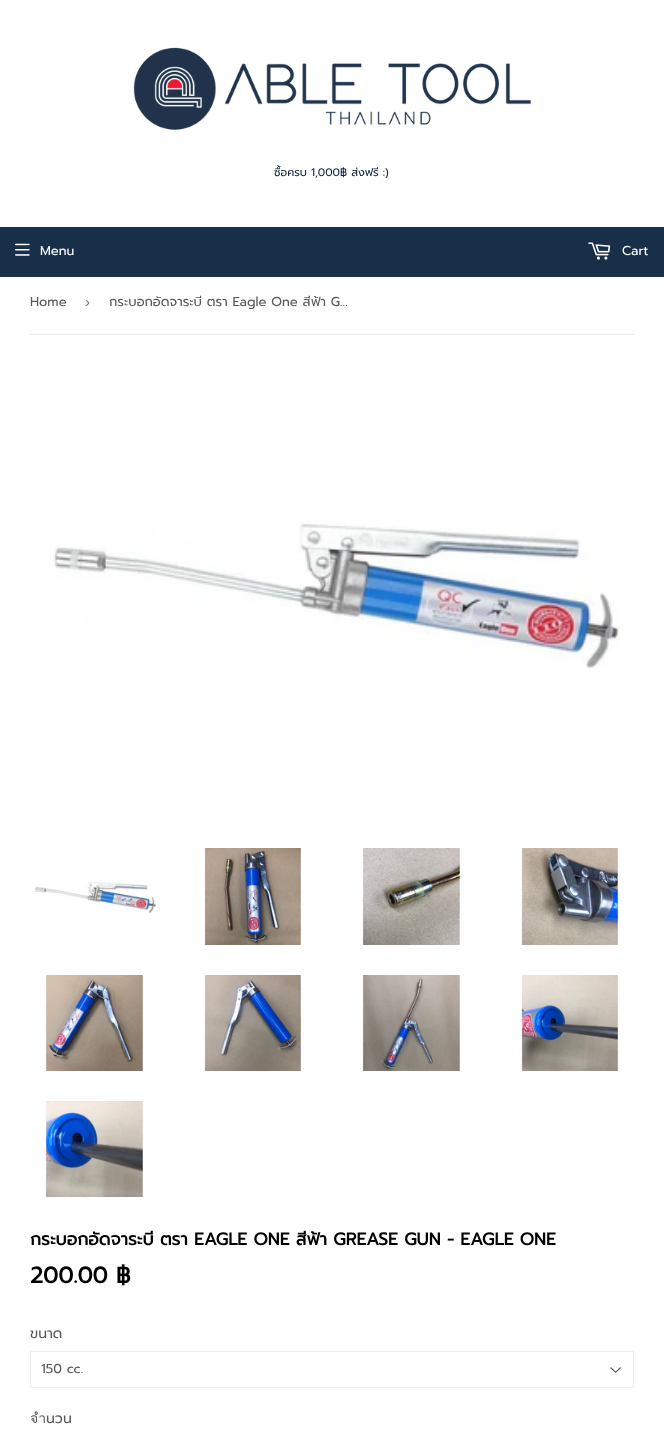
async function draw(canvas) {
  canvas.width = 664
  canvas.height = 1435
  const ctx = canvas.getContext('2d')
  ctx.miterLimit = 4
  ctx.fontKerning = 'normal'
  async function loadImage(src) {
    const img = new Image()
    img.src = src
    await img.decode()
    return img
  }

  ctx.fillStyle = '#fff'
  ctx.fillRect(0, 0, 664, 1435)
  ctx.drawImage(await loadImage('image0.png'), 133, 47, 399, 83)
  ctx.font = '11px Prompt'
  ctx.fillStyle = '#0f243d'
  ctx.fillText('ซื้อครบ 1,000฿ ส่งฟรี :)', 274, 176)
  ctx.fillStyle = '#182e49'
  ctx.fillRect(0, 227, 664, 50)
  ctx.drawImage(await loadImage('image1.png'), 15, 243, 15, 13)
  ctx.font = '13px Prompt'
  ctx.fillStyle = '#fff'
  ctx.fillText('Menu', 40, 255)
  ctx.drawImage(await loadImage('image2.png'), 588, 242, 23, 18)
  ctx.fillText('Cart', 622, 255)
  ctx.fillStyle = '#ececec'
  ctx.fillRect(30, 334, 604, 1)
  ctx.fillStyle = '#585858'
  ctx.fillText('Home', 30, 306)
  ctx.font = '15px Liberation Sans'
  ctx.fillStyle = '#767676'
  ctx.fillText('›', 85, 307)
  ctx.font = '13px Prompt'
  ctx.fillStyle = '#585858'
  ctx.fillText('กระบอกอัดจาระบี ตรา Eagle One สีฟ้า G…', 109, 306)
  ctx.drawImage(await loadImage('image3.png'), 53, 521, 568, 148)
  ctx.drawImage(await loadImage('image4.png'), 35, 882, 121, 31)
  ctx.drawImage(await loadImage('image5.png'), 204, 848, 98, 97)
  ctx.drawImage(await loadImage('image6.png'), 360, 848, 103, 97)
  ctx.drawImage(await loadImage('image7.png'), 521, 848, 100, 97)
  ctx.drawImage(await loadImage('image8.png'), 45, 975, 99, 96)
  ctx.drawImage(await loadImage('image9.png'), 204, 975, 97, 96)
  ctx.drawImage(await loadImage('image10.png'), 362, 975, 98, 96)
  ctx.drawImage(await loadImage('image11.png'), 519, 975, 99, 96)
  ctx.drawImage(await loadImage('image12.png'), 43, 1101, 100, 96)
  ctx.font = 'bold 17.3px Prompt'
  ctx.fillStyle = '#000'
  ctx.fillText('กระบอกอัดจาระบี ตรา EAGLE ONE สีฟ้า GREASE GUN - EAGLE ONE', 30, 1245)
  ctx.font = 'bold 22.5px Prompt'
  ctx.fillText('200.00 ฿', 30, 1283)
  ctx.font = '14px Prompt'
  ctx.fillStyle = '#585858'
  ctx.fillText('ขนาด', 30, 1338)
  ctx.drawImage(await loadImage('image13.png'), 610, 1367, 11, 6)
  ctx.beginPath()
  ctx.roundRect(30.5, 1351.5, 603, 36, 1.5)
  ctx.strokeStyle = '#ececec'
  ctx.stroke()
  ctx.font = '13px Prompt'
  ctx.fillText('150 cc.', 41, 1373)
  ctx.font = '14px Prompt'
  ctx.fillText('จำนวน', 30, 1423)
}

draw(document.querySelector('canvas'))
